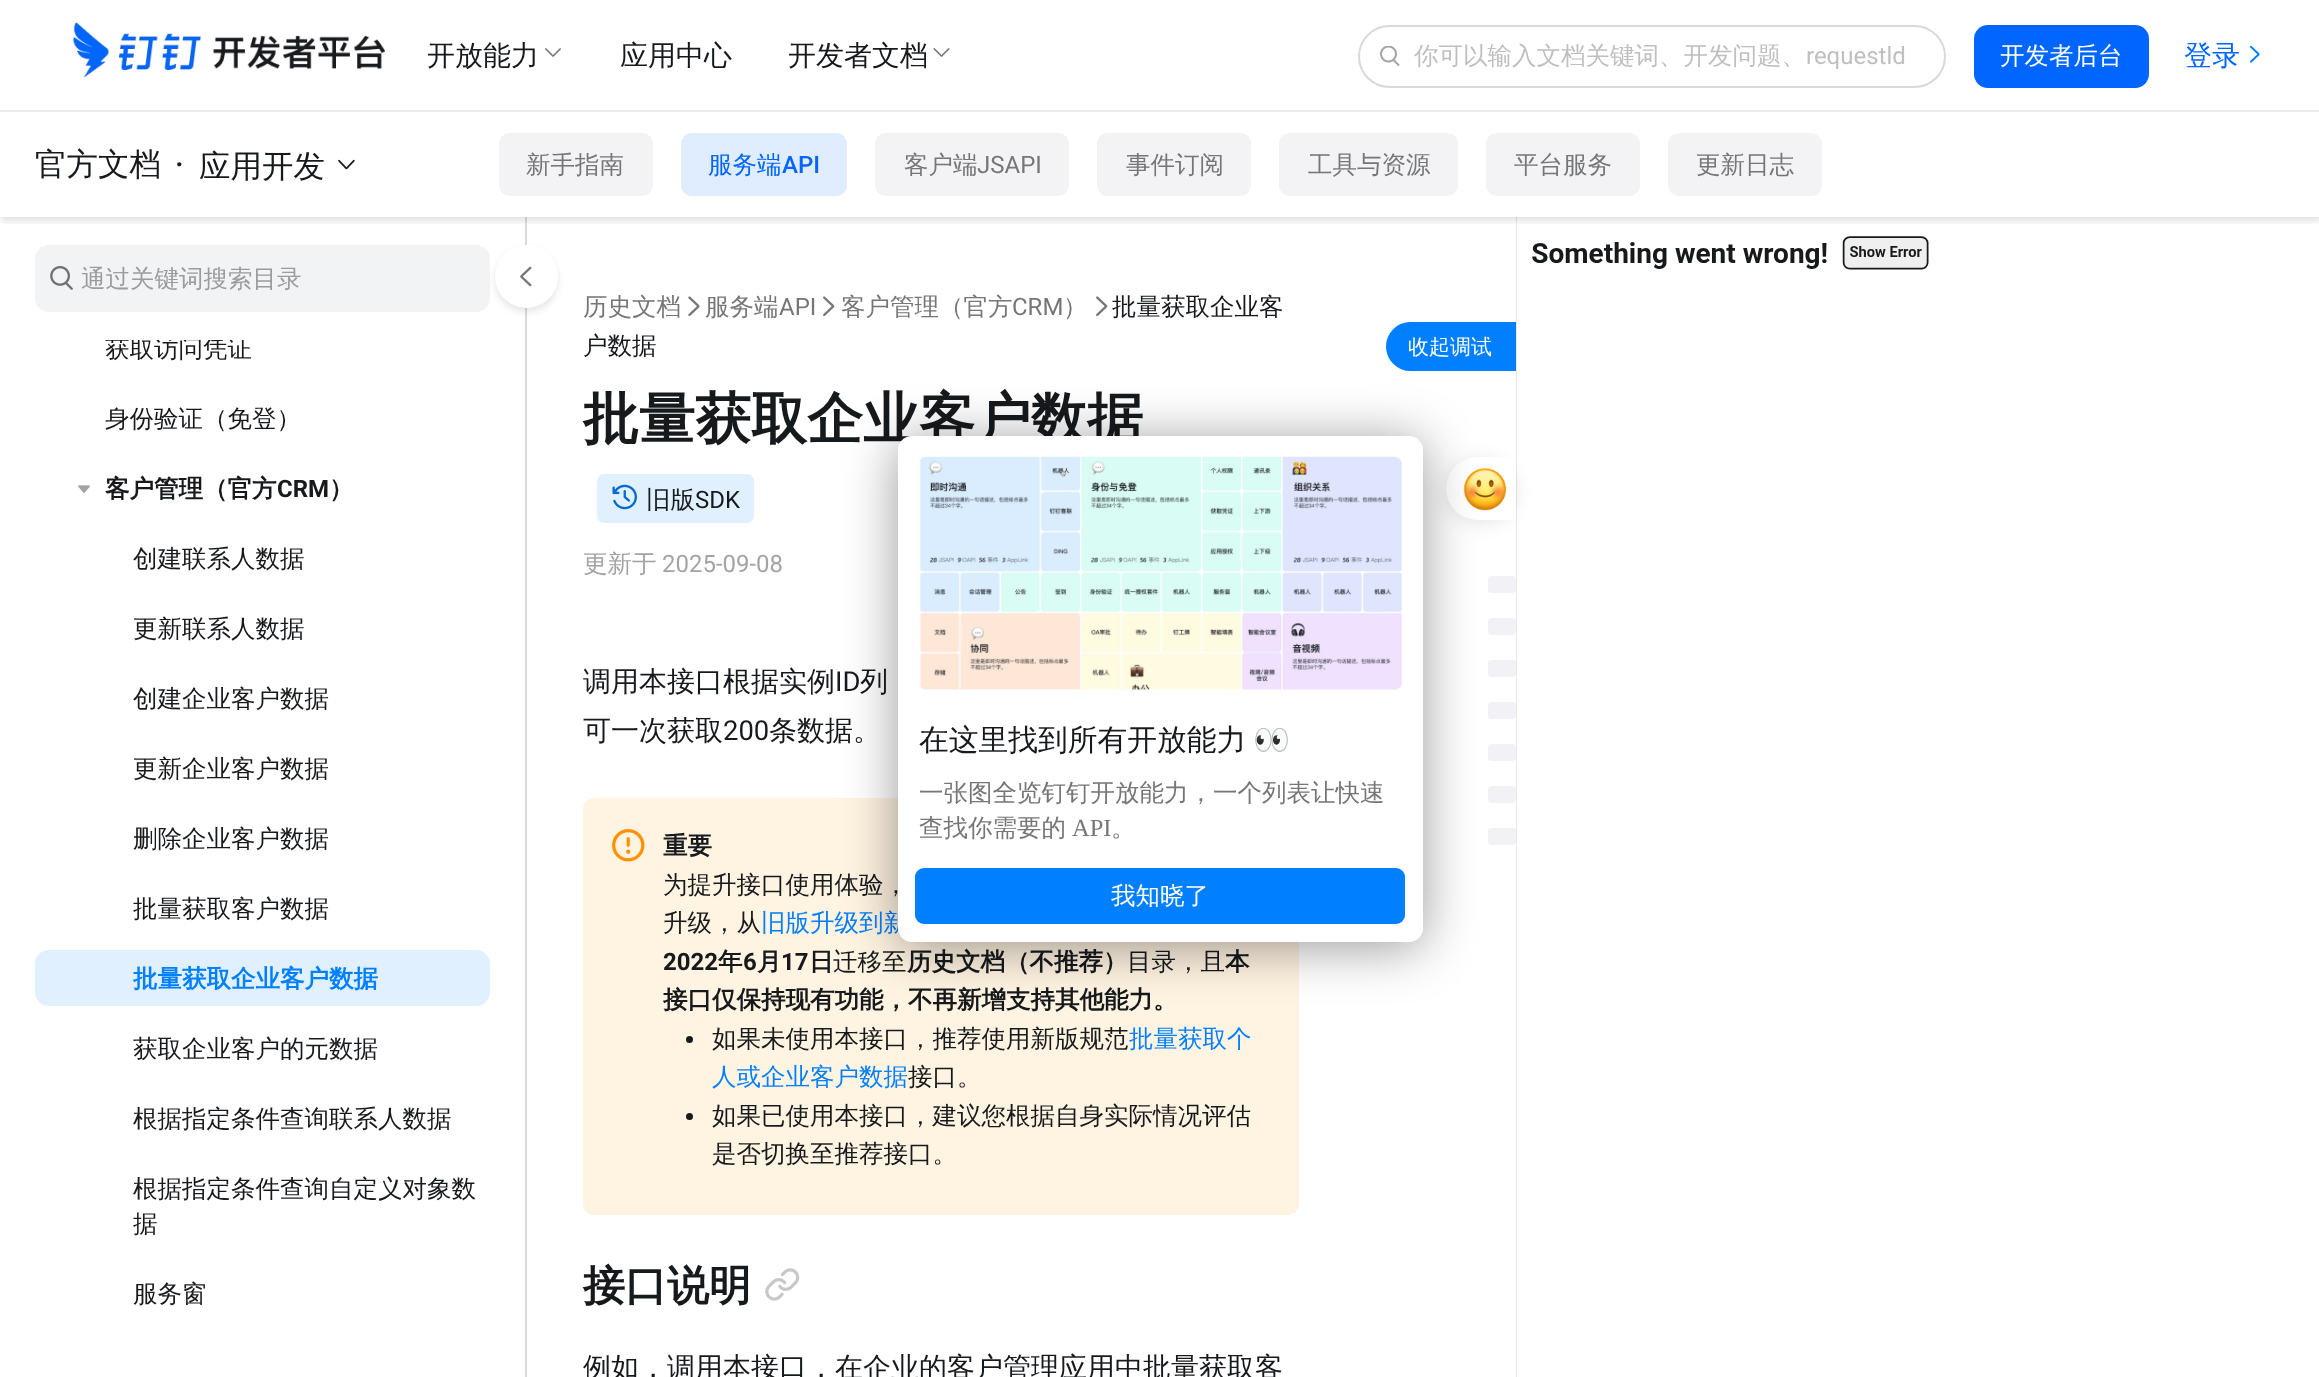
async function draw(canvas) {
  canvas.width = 2319
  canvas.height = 1377
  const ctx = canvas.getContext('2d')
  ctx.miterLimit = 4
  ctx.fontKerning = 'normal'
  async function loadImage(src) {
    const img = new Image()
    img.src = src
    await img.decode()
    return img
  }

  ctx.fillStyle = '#fff'
  ctx.fillRect(0, 0, 2319, 1377)
  ctx.fillStyle = '#f6f6f6'
  ctx.fillRect(525, 217, 2, 1160)
  ctx.fillStyle = '#e8e8e8'
  ctx.fillRect(1516, 217, 1, 1160)
  ctx.save()
  ctx.beginPath()
  ctx.rect(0, 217, 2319, 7)
  ctx.clip()
  ctx.fillStyle = '#0000001f'
  ctx.filter = 'blur(3.5px)'
  ctx.beginPath()
  ctx.rect(0, 116, 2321, 105)
  ctx.fill()
  ctx.filter = 'none'
  ctx.restore()
  ctx.fillStyle = '#eaebed'
  ctx.fillRect(0, 110, 2319, 2)
  ctx.drawImage(await loadImage('image0.png'), 73, 22, 313, 55)
  ctx.font = '500 28px WenQuanYi Zen Hei'
  ctx.fillStyle = '#171a1d'
  ctx.fillText('开放能力', 427, 65)
  ctx.drawImage(await loadImage('image1.png'), 545, 48, 16, 9)
  ctx.fillText('应用中心', 620, 65)
  ctx.fillText('开发者文档', 788, 65)
  ctx.drawImage(await loadImage('image2.png'), 933, 48, 17, 9)
  ctx.beginPath()
  ctx.roundRect(1359, 26, 586, 61, 30.5)
  ctx.strokeStyle = '#d9d9d9'
  ctx.lineWidth = 2
  ctx.stroke()
  ctx.drawImage(await loadImage('image3.png'), 1380, 46, 20, 20)
  ctx.font = '500 24.5px WenQuanYi Zen Hei'
  ctx.fillStyle = '#bfbfbf'
  ctx.fillText('你可以输入文档关键词、开发问题、', 1414, 64)
  ctx.font = '24.5px Roboto'
  ctx.fillText('requestld', 1806, 64)
  ctx.fillStyle = '#06f'
  ctx.beginPath()
  ctx.roundRect(1974, 25, 175, 63, 14)
  ctx.fill()
  ctx.font = '500 24.5px WenQuanYi Zen Hei'
  ctx.fillStyle = '#fff'
  ctx.fillText('开发者后台', 2000, 64)
  ctx.font = '500 28px WenQuanYi Zen Hei'
  ctx.fillStyle = '#06f'
  ctx.fillText('登录', 2184, 65)
  ctx.drawImage(await loadImage('image4.png'), 2250, 45, 10, 18)
  ctx.font = '500 31.5px WenQuanYi Zen Hei'
  ctx.fillStyle = '#171a1d'
  ctx.fillText('官方文档', 35, 175)
  ctx.font = '500 31.5px Roboto'
  ctx.fillText('·', 175, 175)
  ctx.font = '500 31.5px WenQuanYi Zen Hei'
  ctx.fillText('应用开发', 199, 177)
  ctx.drawImage(await loadImage('image5.png'), 338, 159, 17, 11)
  ctx.fillStyle = '#f3f3f5'
  ctx.beginPath()
  ctx.roundRect(499, 133, 154, 63, 11)
  ctx.fill()
  ctx.font = '500 24.5px WenQuanYi Zen Hei'
  ctx.fillStyle = '#747677'
  ctx.fillText('新手指南', 526, 173)
  ctx.fillStyle = '#e0edff'
  ctx.beginPath()
  ctx.roundRect(681, 133, 166, 63, 11)
  ctx.fill()
  ctx.fillStyle = '#06f'
  ctx.fillText('服务端', 708, 173)
  ctx.font = '500 24.5px Roboto'
  ctx.fillText('API', 782, 173)
  ctx.fillStyle = '#f3f3f5'
  ctx.beginPath()
  ctx.roundRect(875, 133, 194, 63, 11)
  ctx.fill()
  ctx.font = '500 24.5px WenQuanYi Zen Hei'
  ctx.fillStyle = '#747677'
  ctx.fillText('客户端', 904, 173)
  ctx.font = '24.5px Roboto'
  ctx.fillText('JSAPI', 977, 173)
  ctx.fillStyle = '#f3f3f5'
  ctx.beginPath()
  ctx.roundRect(1097, 133, 154, 63, 11)
  ctx.fill()
  ctx.font = '500 24.5px WenQuanYi Zen Hei'
  ctx.fillStyle = '#747677'
  ctx.fillText('事件订阅', 1126, 173)
  ctx.fillStyle = '#f3f3f5'
  ctx.beginPath()
  ctx.roundRect(1279, 133, 179, 63, 11)
  ctx.fill()
  ctx.fillStyle = '#747677'
  ctx.fillText('工具与资源', 1308, 173)
  ctx.fillStyle = '#f3f3f5'
  ctx.beginPath()
  ctx.roundRect(1486, 133, 154, 63, 11)
  ctx.fill()
  ctx.fillStyle = '#747677'
  ctx.fillText('平台服务', 1514, 173)
  ctx.fillStyle = '#f3f3f5'
  ctx.beginPath()
  ctx.roundRect(1668, 133, 154, 63, 11)
  ctx.fill()
  ctx.fillStyle = '#747677'
  ctx.fillText('更新日志', 1696, 173)
  ctx.fillStyle = '#171a1d'
  ctx.fillText('获取访问凭证', 105, 357)
  ctx.fillStyle = '#fff'
  ctx.fillRect(105, 336, 146, 4)
  ctx.fillStyle = '#f2f3f4'
  ctx.beginPath()
  ctx.roundRect(35, 245, 455, 67, 14)
  ctx.fill()
  ctx.drawImage(await loadImage('image6.png'), 50, 266, 23, 24)
  ctx.fillStyle = '#9a9c9e'
  ctx.fillText('通过关键词搜索目录', 81, 287)
  ctx.fillStyle = '#171a1d'
  ctx.fillText('身份验证（免登）', 105, 427)
  ctx.drawImage(await loadImage('image7.png'), 78, 485, 12, 8)
  ctx.font = 'bold 24.5px WenQuanYi Zen Hei'
  ctx.fillText('客户管理（官方', 105, 497)
  ctx.font = 'bold 24.5px Roboto'
  ctx.fillText('CRM', 277, 497)
  ctx.font = 'bold 24.5px WenQuanYi Zen Hei'
  ctx.fillText('）', 329, 497)
  ctx.font = '500 24.5px WenQuanYi Zen Hei'
  ctx.fillText('创建联系人数据', 133, 567)
  ctx.fillText('更新联系人数据', 133, 637)
  ctx.fillText('创建企业客户数据', 133, 707)
  ctx.fillText('更新企业客户数据', 133, 777)
  ctx.fillText('删除企业客户数据', 133, 847)
  ctx.fillText('批量获取客户数据', 133, 917)
  ctx.fillStyle = '#e0f0ff'
  ctx.beginPath()
  ctx.roundRect(35, 950, 455, 56, 14)
  ctx.fill()
  ctx.font = 'bold 24.5px WenQuanYi Zen Hei'
  ctx.fillStyle = '#007fff'
  ctx.fillText('批量获取企业客户数据', 133, 987)
  ctx.font = '500 24.5px WenQuanYi Zen Hei'
  ctx.fillStyle = '#171a1d'
  ctx.fillText('获取企业客户的元数据', 133, 1057)
  ctx.fillText('根据指定条件查询联系人数据', 133, 1127)
  ctx.fillText('根据指定条件查询自定义对象数', 133, 1197)
  ctx.fillText('据', 133, 1232)
  ctx.fillText('服务窗', 133, 1302)
  ctx.fillStyle = '#7e868e3d'
  ctx.fillRect(525, 217, 2, 1160)
  ctx.fillStyle = '#0000001a'
  ctx.filter = 'blur(3.5px)'
  ctx.beginPath()
  ctx.roundRect(495, 249, 63, 63, 31.5)
  ctx.fill()
  ctx.filter = 'none'
  ctx.fillStyle = '#fff'
  ctx.beginPath()
  ctx.arc(526.5, 276.5, 31.5, 0, 2 * Math.PI)
  ctx.fill()
  ctx.drawImage(await loadImage('image8.png'), 520, 266, 12, 21)
  ctx.fillStyle = '#747677'
  ctx.fillText('历史文档', 583, 315)
  ctx.drawImage(await loadImage('image9.png'), 688, 296, 12, 20)
  ctx.fillText('服务端', 705, 315)
  ctx.font = '24.5px Roboto'
  ctx.fillText('API', 779, 315)
  ctx.drawImage(await loadImage('image10.png'), 823, 296, 12, 20)
  ctx.font = '500 24.5px WenQuanYi Zen Hei'
  ctx.fillText('客户管理（官方', 841, 315)
  ctx.font = '24.5px Roboto'
  ctx.fillText('CRM', 1012, 315)
  ctx.font = '500 24.5px WenQuanYi Zen Hei'
  ctx.fillText('）', 1063, 315)
  ctx.drawImage(await loadImage('image10.png'), 1096, 296, 12, 20)
  ctx.fillStyle = '#171a1d'
  ctx.fillText('批量获取企业客', 1112, 315)
  ctx.fillText('户数据', 583, 354)
  ctx.font = 'bold 56px WenQuanYi Zen Hei'
  ctx.fillText('批量获取企业客户数据', 583, 438)
  ctx.fillStyle = '#e0f0ff'
  ctx.beginPath()
  ctx.roundRect(597, 474, 157, 49, 7)
  ctx.fill()
  ctx.drawImage(await loadImage('image11.png'), 612, 484, 25, 26)
  ctx.font = '500 24.5px WenQuanYi Zen Hei'
  ctx.fillStyle = '#171a1d'
  ctx.fillText('旧版', 646, 508)
  ctx.font = '24.5px Roboto'
  ctx.fillText('SDK', 695, 508)
  ctx.font = '500 24.5px WenQuanYi Zen Hei'
  ctx.fillStyle = '#a2a3a5'
  ctx.fillText('更新于', 583, 572)
  ctx.font = '24.5px Roboto'
  ctx.fillText('2025-09-08', 662, 572)
  ctx.font = '500 28px WenQuanYi Zen Hei'
  ctx.fillStyle = '#171a1d'
  ctx.fillText('调用本接口根据实例', 583, 691)
  ctx.font = '28px Roboto'
  ctx.fillText('ID', 835, 691)
  ctx.font = '500 28px WenQuanYi Zen Hei'
  ctx.fillText('列', 860, 691)
  ctx.fillText('可一次获取', 583, 740)
  ctx.font = '28px Roboto'
  ctx.fillText('200', 723, 740)
  ctx.font = '500 28px WenQuanYi Zen Hei'
  ctx.fillText('条数据。', 769, 740)
  ctx.fillStyle = '#fff3e1'
  ctx.beginPath()
  ctx.roundRect(583, 798, 716, 417, 11)
  ctx.fill()
  ctx.drawImage(await loadImage('image12.png'), 612, 829, 33, 33)
  ctx.font = 'bold 24.5px WenQuanYi Zen Hei'
  ctx.fillStyle = '#171a1d'
  ctx.fillText('重要', 663, 854)
  ctx.font = '500 24.5px WenQuanYi Zen Hei'
  ctx.fillText('为提升接口使用体验，', 663, 893)
  ctx.fillText('升级，从', 663, 931)
  ctx.fillStyle = '#007fff'
  ctx.fillText('旧版升级到新', 761, 931)
  ctx.font = 'bold 24.5px Roboto'
  ctx.fillStyle = '#171a1d'
  ctx.fillText('2022', 663, 970)
  ctx.font = 'bold 24.5px WenQuanYi Zen Hei'
  ctx.fillText('年', 718, 970)
  ctx.font = 'bold 24.5px Roboto'
  ctx.fillText('6', 743, 970)
  ctx.font = 'bold 24.5px WenQuanYi Zen Hei'
  ctx.fillText('月', 757, 970)
  ctx.font = 'bold 24.5px Roboto'
  ctx.fillText('17', 781, 970)
  ctx.font = 'bold 24.5px WenQuanYi Zen Hei'
  ctx.fillText('日', 809, 970)
  ctx.font = '500 24.5px WenQuanYi Zen Hei'
  ctx.fillText('迁移至', 833, 970)
  ctx.font = 'bold 24.5px WenQuanYi Zen Hei'
  ctx.fillText('历史文档（不推荐）', 907, 970)
  ctx.font = '500 24.5px WenQuanYi Zen Hei'
  ctx.fillText('目录，且', 1127, 970)
  ctx.font = 'bold 24.5px WenQuanYi Zen Hei'
  ctx.fillText('本', 1225, 970)
  ctx.fillText('接口仅保持现有功能，不再新增支持其他能力。', 663, 1008)
  ctx.beginPath()
  ctx.arc(689.5, 1039.5, 3.5, 0, 2 * Math.PI)
  ctx.fill()
  ctx.font = '500 24.5px WenQuanYi Zen Hei'
  ctx.fillText('如果未使用本接口，推荐使用新版规范', 712, 1047)
  ctx.fillStyle = '#007fff'
  ctx.fillText('批量获取个', 1129, 1047)
  ctx.fillText('人或企业客户数据', 712, 1085)
  ctx.fillStyle = '#171a1d'
  ctx.fillText('接口。', 908, 1085)
  ctx.beginPath()
  ctx.arc(689.5, 1116.5, 3.5, 0, 2 * Math.PI)
  ctx.fill()
  ctx.fillText('如果已使用本接口，建议您根据自身实际情况评估', 712, 1124)
  ctx.fillText('是否切换至推荐接口。', 712, 1162)
  ctx.font = 'bold 42px WenQuanYi Zen Hei'
  ctx.fillText('接口说明', 583, 1300)
  ctx.drawImage(await loadImage('image13.png'), 765, 1268, 35, 33)
  ctx.font = '500 28px WenQuanYi Zen Hei'
  ctx.fillText('例如，调用本接口，在企业的客户管理应用中批量获取客', 583, 1377)
  ctx.fillStyle = '#007fff'
  ctx.beginPath()
  ctx.roundRect(1386, 322, 130, 49, [24.5, 0, 0, 24.5])
  ctx.fill()
  ctx.font = '500 21px WenQuanYi Zen Hei'
  ctx.fillStyle = '#fff'
  ctx.fillText('收起调试', 1408, 354)
  ctx.fillStyle = '#0000001a'
  ctx.filter = 'blur(9px)'
  ctx.beginPath()
  ctx.roundRect(1446, 460, 70, 63, 31.5)
  ctx.fill()
  ctx.filter = 'none'
  ctx.fillStyle = '#fff'
  ctx.beginPath()
  ctx.roundRect(1446, 457, 70, 63, [31.5, 0, 0, 31.5])
  ctx.fill()
  ctx.drawImage(await loadImage('image14.png'), 1463, 468, 43, 43)
  ctx.fillStyle = '#f2f2f6'
  ctx.beginPath()
  ctx.roundRect(1488, 576, 28, 17, 4)
  ctx.fill()
  ctx.beginPath()
  ctx.roundRect(1488, 618, 28, 17, 4)
  ctx.fill()
  ctx.beginPath()
  ctx.roundRect(1488, 660, 28, 17, 4)
  ctx.fill()
  ctx.beginPath()
  ctx.roundRect(1488, 702, 28, 17, 4)
  ctx.fill()
  ctx.beginPath()
  ctx.roundRect(1488, 744, 28, 17, 4)
  ctx.fill()
  ctx.beginPath()
  ctx.roundRect(1488, 786, 28, 17, 4)
  ctx.fill()
  ctx.beginPath()
  ctx.roundRect(1488, 828, 28, 17, 4)
  ctx.fill()
  ctx.drawImage(await loadImage('image15.png'), 1532, 236, 397, 34)
  ctx.fillStyle = '#00000066'
  ctx.filter = 'blur(26px)'
  ctx.beginPath()
  ctx.roundRect(898, 441, 525, 506, 14)
  ctx.fill()
  ctx.filter = 'none'
  ctx.fillStyle = '#fff'
  ctx.beginPath()
  ctx.roundRect(898, 436, 525, 506, 14)
  ctx.fill()
  ctx.drawImage(await loadImage('image16.png'), 919, 456, 483, 234)
  ctx.font = '500 29.75px WenQuanYi Zen Hei'
  ctx.fillStyle = '#171a1d'
  ctx.fillText('在这里找到所有开放能力', 919, 750)
  ctx.font = '29.75px Noto Color Emoji'
  ctx.fillText('👀', 1253, 750)
  ctx.font = '500 24.5px WenQuanYi Zen Hei'
  ctx.fillStyle = '#747677'
  ctx.fillText('一张图全览钉钉开放能力，一个列表让快速', 919, 801)
  ctx.fillText('查找你需要的', 919, 836)
  ctx.font = '24.5px Liberation Serif'
  ctx.fillText('API', 1072, 836)
  ctx.font = '500 24.5px WenQuanYi Zen Hei'
  ctx.fillText('。', 1111, 836)
  ctx.fillStyle = '#007fff'
  ctx.beginPath()
  ctx.roundRect(915, 868, 490, 56, 9)
  ctx.fill()
  ctx.fillStyle = '#fff'
  ctx.fillText('我知晓了', 1111, 904)
}

draw(document.querySelector('canvas'))
